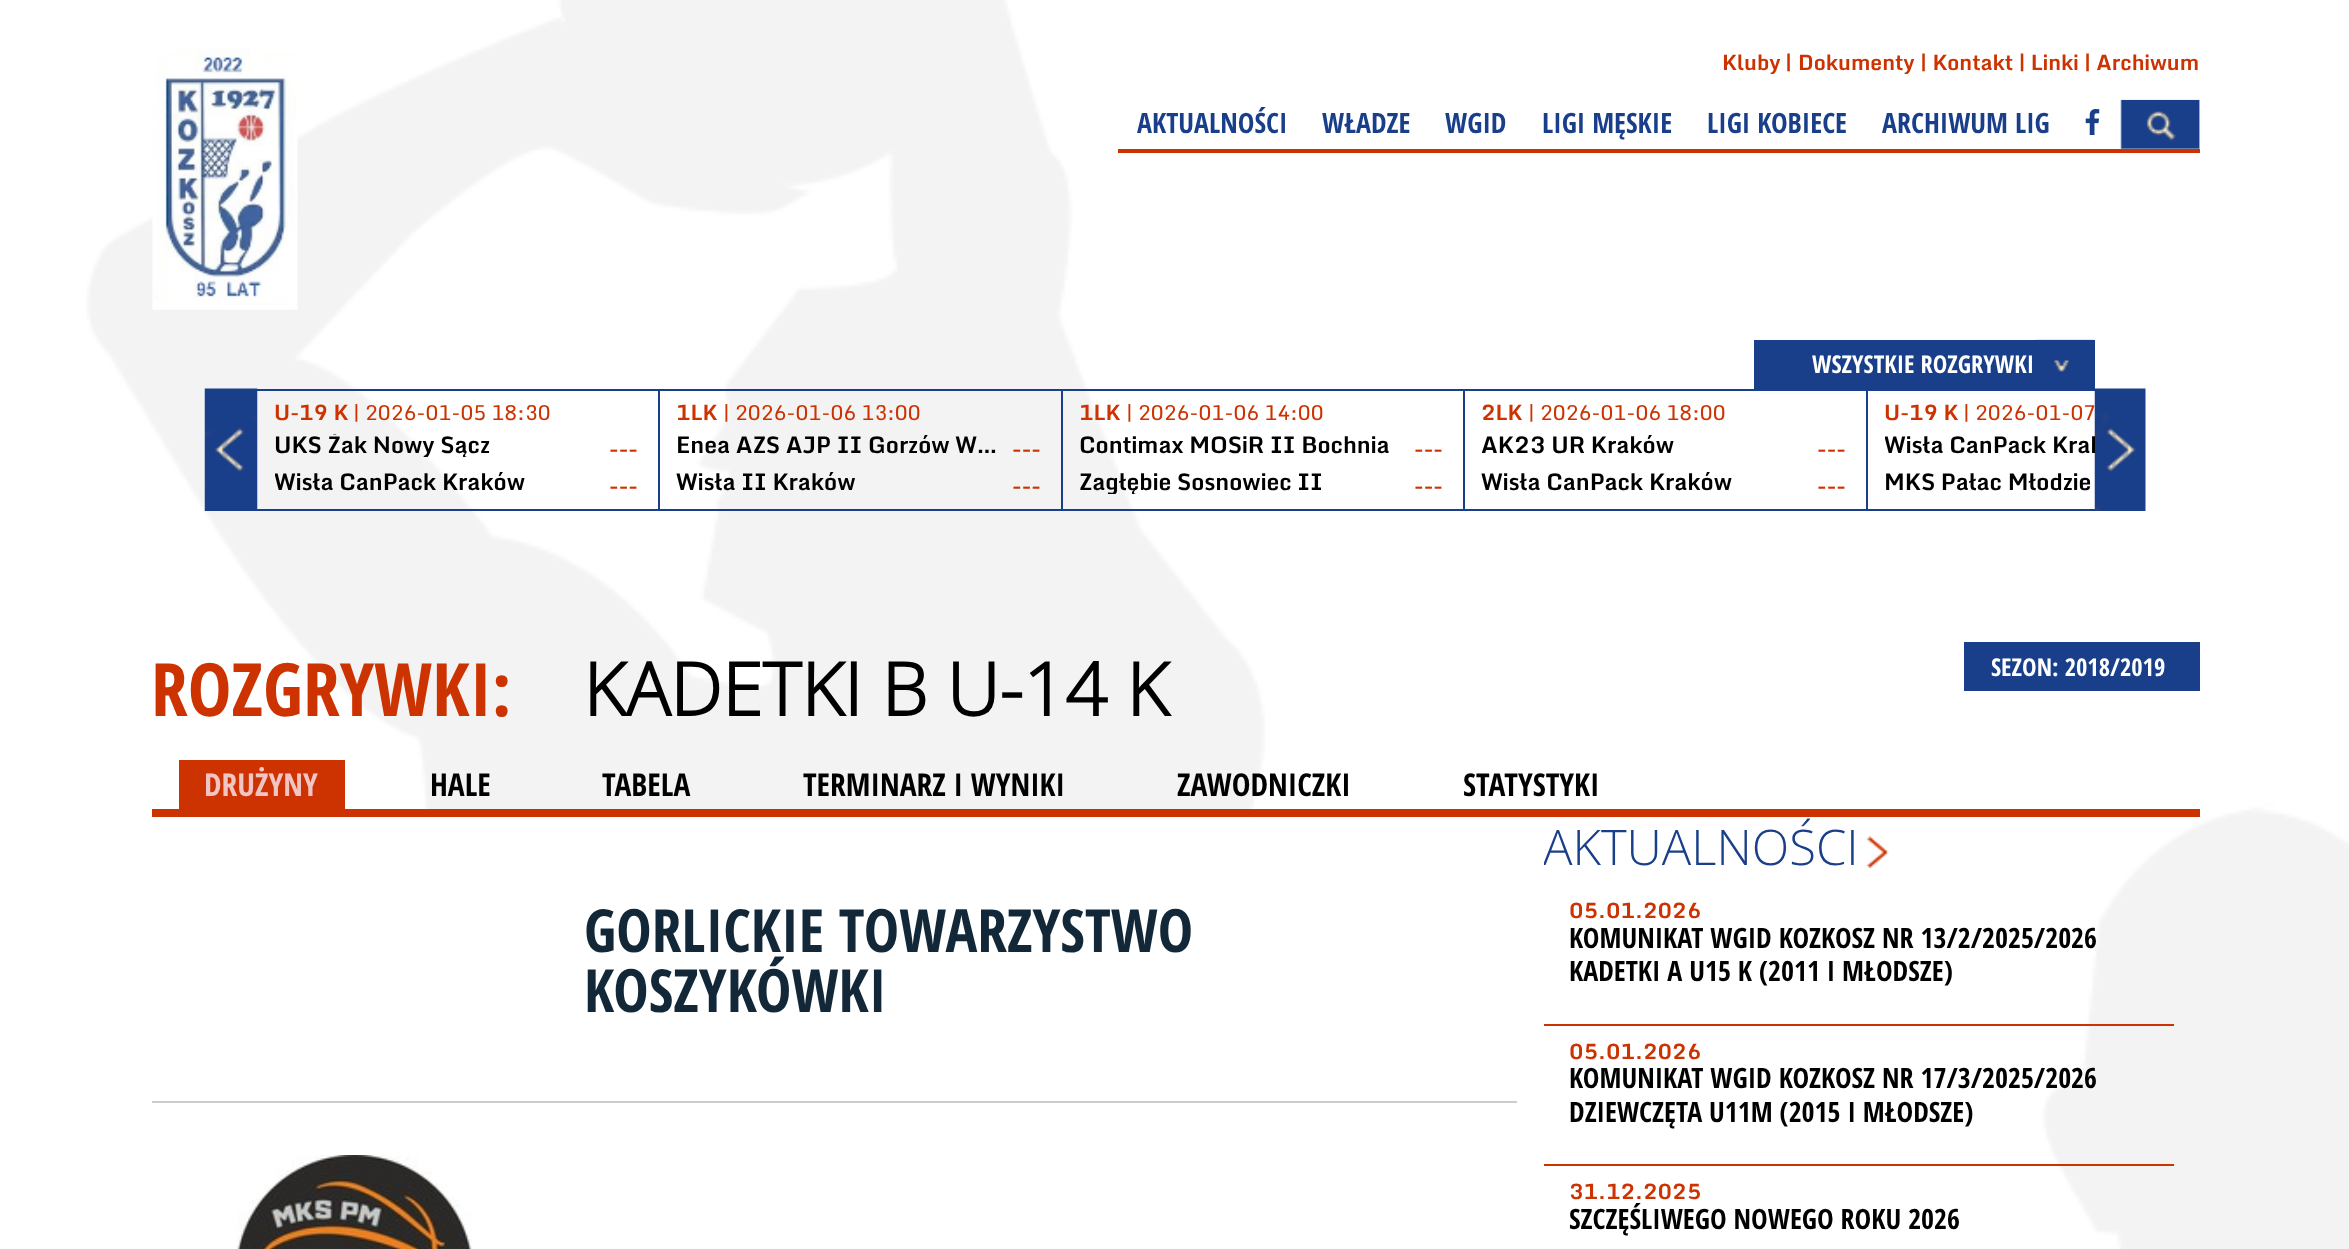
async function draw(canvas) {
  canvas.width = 2349
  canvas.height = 1249
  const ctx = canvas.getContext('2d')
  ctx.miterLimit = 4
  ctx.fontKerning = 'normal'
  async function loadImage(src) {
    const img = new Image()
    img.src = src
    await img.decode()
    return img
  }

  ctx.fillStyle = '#fff'
  ctx.fillRect(0, 0, 2349, 1249)
  ctx.drawImage(await loadImage('image0.png'), 86, 0, 2263, 1249)
  ctx.drawImage(await loadImage('image1.png'), 152, 47, 146, 263)
  ctx.save()
  ctx.beginPath()
  ctx.rect(1722, 53, 478, 21)
  ctx.clip()
  ctx.font = 'bold 21px Monda'
  ctx.fillStyle = '#c30'
  ctx.fillText('Kluby', 1722, 70)
  ctx.restore()
  ctx.font = 'bold 21px Monda'
  ctx.fillStyle = '#c30'
  ctx.fillText('|', 1785, 70)
  ctx.save()
  ctx.beginPath()
  ctx.rect(1722, 53, 478, 21)
  ctx.clip()
  ctx.fillText('Dokumenty', 1798, 70)
  ctx.restore()
  ctx.fillText('| Kontakt | Linki | Archiwum', 1920, 70)
  ctx.fillRect(1118, 149, 1082, 4)
  ctx.font = 'bold 28px Open Sans Condensed'
  ctx.fillStyle = '#193f8a'
  ctx.fillText('AKTUALNOŚCI', 1137, 133)
  ctx.fillText('WŁADZE', 1322, 133)
  ctx.fillText('WGID', 1445, 133)
  ctx.fillText('LIGI MĘSKIE', 1542, 133)
  ctx.fillText('LIGI KOBIECE', 1707, 133)
  ctx.fillText('ARCHIWUM LIG', 1882, 133)
  ctx.drawImage(await loadImage('image2.png'), 2085, 109, 15, 26)
  ctx.drawImage(await loadImage('image3.png'), 2120, 99, 80, 50)
  ctx.drawImage(await loadImage('image6.png'), 2094, 388, 52, 123)
  ctx.fillRect(1754, 340, 341, 49)
  ctx.font = 'bold 24.5px Open Sans Condensed'
  ctx.fillStyle = '#fff'
  ctx.fillText('WSZYSTKIE ROZGRYWKI', 1812, 373)
  ctx.drawImage(await loadImage('image4.png'), 2035, 339, 60, 33)
  ctx.drawImage(await loadImage('image5.png'), 204, 388, 54, 123)
  ctx.fillStyle = '#193f8a'
  ctx.fillRect(257, 389, 805, 2)
  ctx.fillRect(658, 389, 2, 122)
  ctx.fillRect(257, 509, 403, 2)
  ctx.font = 'bold 21px Monda'
  ctx.fillStyle = '#c30'
  ctx.fillText('U-19 K', 274, 420)
  ctx.font = '21px Monda'
  ctx.fillText('| 2026-01-05 18:30', 353, 420)
  ctx.save()
  ctx.beginPath()
  ctx.rect(275, 434, 324, 23)
  ctx.clip()
  ctx.font = 'bold 22.75px Monda'
  ctx.fillStyle = '#000'
  ctx.fillText('UKS Żak Nowy Sącz', 274, 453)
  ctx.restore()
  ctx.font = 'bold 22.75px Monda'
  ctx.fillText('---', 609, 457)
  ctx.save()
  ctx.beginPath()
  ctx.rect(275, 471, 324, 23)
  ctx.clip()
  ctx.fillStyle = '#000'
  ctx.fillText('Wisła CanPack Kraków', 274, 490)
  ctx.restore()
  ctx.fillText('---', 609, 494)
  ctx.fillStyle = '#193f8a'
  ctx.fillRect(1061, 389, 2, 122)
  ctx.fillRect(660, 509, 402, 2)
  ctx.font = 'bold 21px Monda'
  ctx.fillStyle = '#c30'
  ctx.fillText('1LK', 676, 420)
  ctx.font = '21px Monda'
  ctx.fillText('| 2026-01-06 13:00', 723, 420)
  ctx.font = 'bold 22.75px Monda'
  ctx.fillStyle = '#000'
  ctx.fillText('Enea AZS AJP II Gorzów W…', 676, 453)
  ctx.fillStyle = '#c30'
  ctx.fillText('---', 1012, 457)
  ctx.fillStyle = '#000'
  ctx.fillText('Wisła II Kraków', 676, 490)
  ctx.fillStyle = '#c30'
  ctx.fillText('---', 1012, 494)
  ctx.fillStyle = '#193f8a'
  ctx.fillRect(1062, 389, 805, 2)
  ctx.fillRect(1463, 389, 2, 122)
  ctx.fillRect(1062, 509, 403, 2)
  ctx.font = 'bold 21px Monda'
  ctx.fillStyle = '#c30'
  ctx.fillText('1LK', 1079, 420)
  ctx.font = '21px Monda'
  ctx.fillText('| 2026-01-06 14:00', 1126, 420)
  ctx.font = 'bold 22.75px Monda'
  ctx.fillStyle = '#000'
  ctx.fillText('Contimax MOSiR II Bochnia', 1079, 453)
  ctx.fillStyle = '#c30'
  ctx.fillText('---', 1414, 457)
  ctx.save()
  ctx.beginPath()
  ctx.rect(1080, 471, 324, 23)
  ctx.clip()
  ctx.fillStyle = '#000'
  ctx.fillText('Zagłębie Sosnowiec II', 1079, 490)
  ctx.restore()
  ctx.fillText('---', 1414, 494)
  ctx.fillStyle = '#193f8a'
  ctx.fillRect(1866, 389, 2, 122)
  ctx.fillRect(1465, 509, 630, 2)
  ctx.font = 'bold 21px Monda'
  ctx.fillStyle = '#c30'
  ctx.fillText('2LK', 1481, 420)
  ctx.font = '21px Monda'
  ctx.fillText('| 2026-01-06 18:00', 1528, 420)
  ctx.font = 'bold 22.75px Monda'
  ctx.fillStyle = '#000'
  ctx.fillText('AK23 UR Kraków', 1481, 453)
  ctx.fillStyle = '#c30'
  ctx.fillText('---', 1817, 457)
  ctx.fillStyle = '#000'
  ctx.fillText('Wisła CanPack Kraków', 1481, 490)
  ctx.fillStyle = '#c30'
  ctx.fillText('---', 1817, 494)
  ctx.fillStyle = '#193f8a'
  ctx.fillRect(1867, 389, 228, 2)
  ctx.font = 'bold 21px Monda'
  ctx.fillStyle = '#c30'
  ctx.fillText('U-19 K', 1884, 420)
  ctx.font = '21px Monda'
  ctx.fillText('| 2026-01-07', 1963, 420)
  ctx.save()
  ctx.beginPath()
  ctx.rect(1885, 434, 210, 23)
  ctx.clip()
  ctx.font = 'bold 22.75px Monda'
  ctx.fillStyle = '#000'
  ctx.fillText('Wisła CanPack Krak', 1884, 453)
  ctx.restore()
  ctx.font = 'bold 22.75px Monda'
  ctx.fillStyle = '#000'
  ctx.fillText('MKS Pałac Młodzie', 1884, 490)
  ctx.font = 'bold 73.5px Open Sans Condensed'
  ctx.fillStyle = '#c30'
  ctx.fillText('ROZGRYWKI:', 151, 716)
  ctx.font = 'bold 73.5px Open Sans'
  ctx.fillStyle = '#000'
  ctx.fillText('KADETKI B U-14 K', 583, 716)
  ctx.fillStyle = '#193f8a'
  ctx.fillRect(1964, 642, 236, 49)
  ctx.font = 'bold 24.5px Open Sans Condensed'
  ctx.fillStyle = '#fff'
  ctx.fillText('SEZON: 2018/2019', 1991, 676)
  ctx.fillStyle = '#c30'
  ctx.fillRect(152, 809, 2048, 8)
  ctx.fillRect(179, 760, 166, 49)
  ctx.font = 'bold 31.5px Open Sans Condensed'
  ctx.fillStyle = '#f2c5c5'
  ctx.fillText('DRUŻYNY', 204, 796)
  ctx.fillStyle = '#000'
  ctx.fillText('HALE', 430, 796)
  ctx.fillText('TABELA', 602, 796)
  ctx.fillText('TERMINARZ I WYNIKI', 803, 796)
  ctx.fillText('ZAWODNICZKI', 1177, 796)
  ctx.fillText('STATYSTYKI', 1463, 796)
  ctx.fillStyle = '#fff'
  ctx.fillRect(398, 817, 853, 432)
  ctx.font = 'bold 59.5px Open Sans Condensed'
  ctx.fillStyle = '#122737'
  ctx.fillText('GORLICKIE TOWARZYSTWO', 584, 952)
  ctx.fillText('KOSZYKÓWKI', 584, 1012)
  ctx.fillStyle = '#ccc'
  ctx.fillRect(152, 1101, 1365, 2)
  ctx.drawImage(await loadImage('image7.png'), 236, 1155, 236, 94)
  ctx.save()
  ctx.beginPath()
  ctx.rect(1544, 817, 630, 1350)
  ctx.clip()
  ctx.font = '300 49px Open Sans'
  ctx.fillStyle = '#193f8a'
  ctx.fillText('AKTUALNOŚCI', 1543, 865)
  ctx.restore()
  ctx.drawImage(await loadImage('image8.png'), 1867, 836, 22, 32)
  ctx.fillStyle = '#c30'
  ctx.fillRect(1544, 1024, 630, 2)
  ctx.font = 'bold 21px Monda'
  ctx.fillText('05.01.2026', 1569, 918)
  ctx.font = 'bold 28px Open Sans Condensed'
  ctx.fillStyle = '#000'
  ctx.fillText('KOMUNIKAT WGID KOZKOSZ NR 13/2/2025/2026', 1569, 948)
  ctx.fillText('KADETKI A U15 K (2011 I MŁODSZE)', 1569, 981)
  ctx.fillStyle = '#c30'
  ctx.fillRect(1544, 1164, 630, 2)
  ctx.font = 'bold 21px Monda'
  ctx.fillText('05.01.2026', 1569, 1059)
  ctx.font = 'bold 28px Open Sans Condensed'
  ctx.fillStyle = '#000'
  ctx.fillText('KOMUNIKAT WGID KOZKOSZ NR 17/3/2025/2026', 1569, 1088)
  ctx.fillText('DZIEWCZĘTA U11M (2015 I MŁODSZE)', 1569, 1122)
  ctx.font = 'bold 21px Monda'
  ctx.fillStyle = '#c30'
  ctx.fillText('31.12.2025', 1569, 1199)
  ctx.font = 'bold 28px Open Sans Condensed'
  ctx.fillStyle = '#000'
  ctx.fillText('SZCZĘŚLIWEGO NOWEGO ROKU 2026', 1569, 1229)
}

draw(document.querySelector('canvas'))
